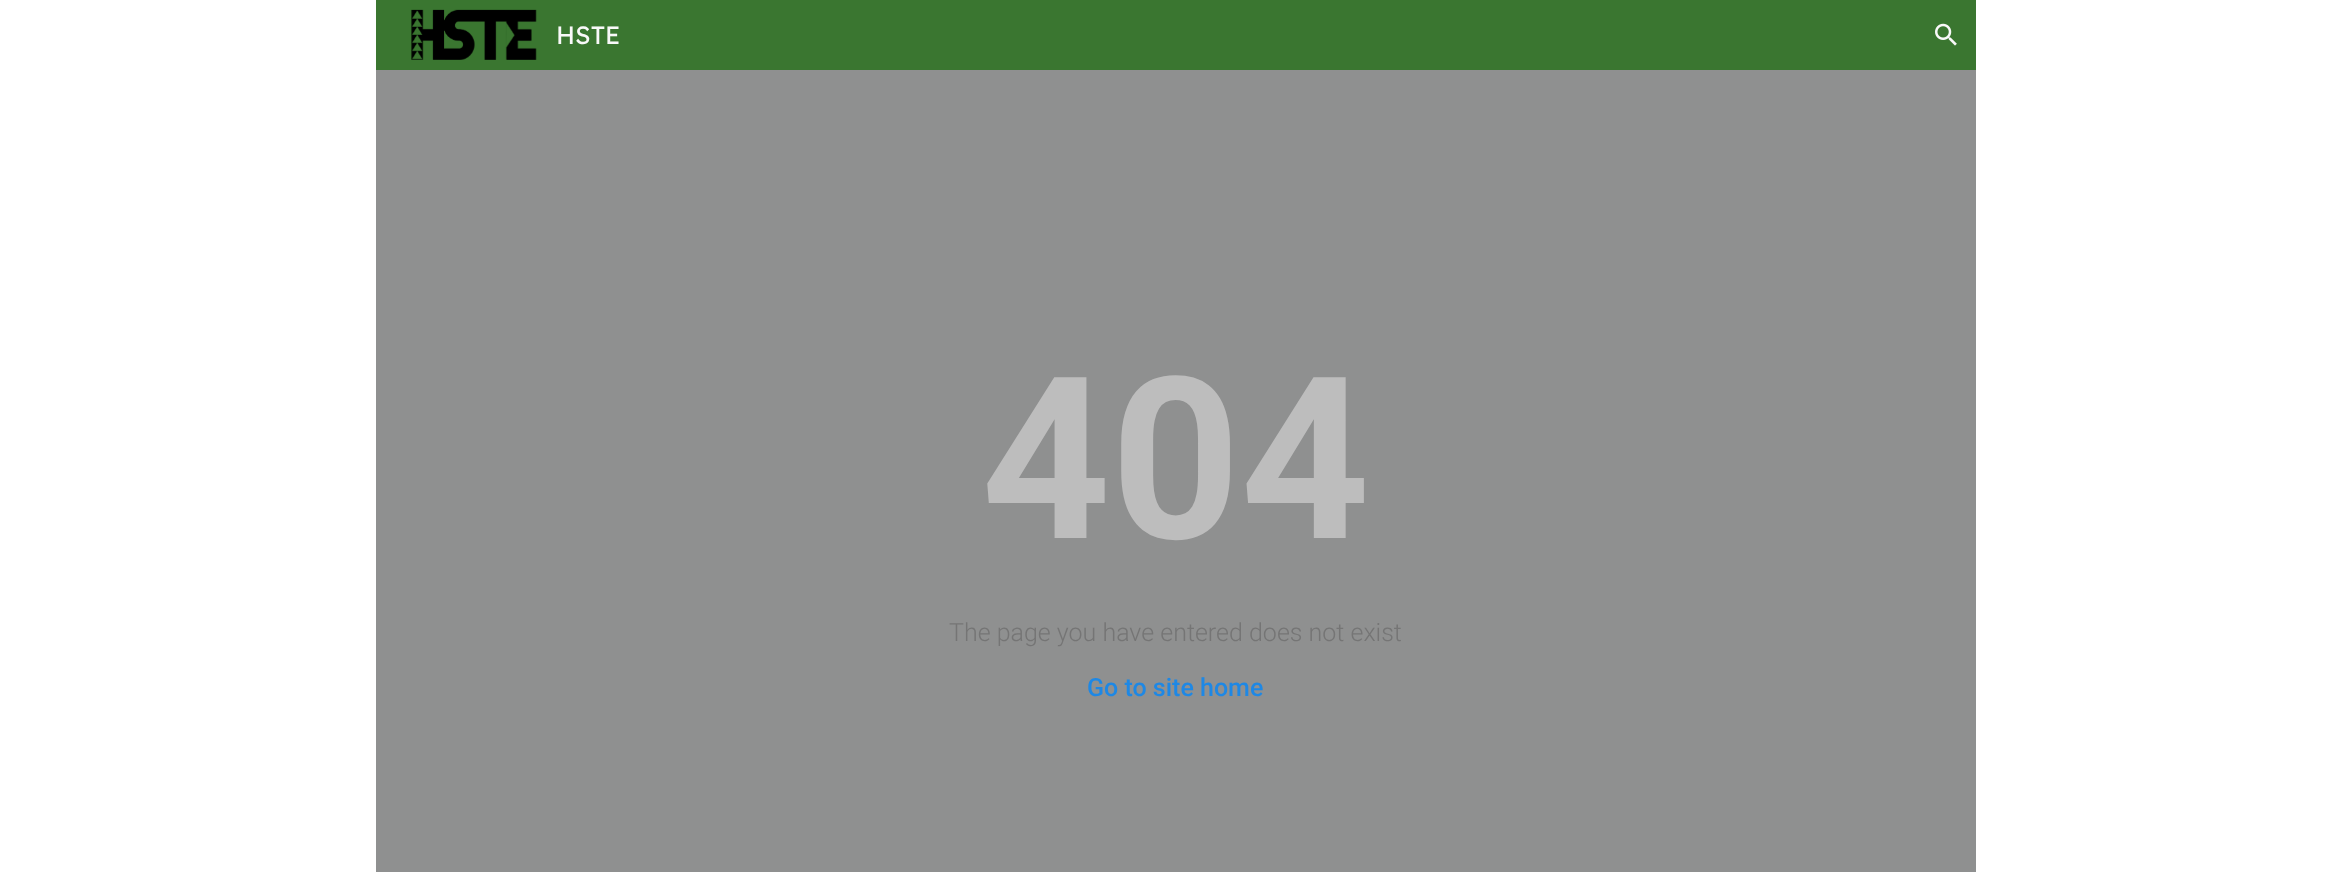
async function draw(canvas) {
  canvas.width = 2351
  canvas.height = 872
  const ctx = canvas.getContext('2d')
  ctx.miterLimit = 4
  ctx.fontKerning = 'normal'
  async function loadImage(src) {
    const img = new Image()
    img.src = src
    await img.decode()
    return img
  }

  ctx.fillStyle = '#fff'
  ctx.fillRect(0, 0, 2351, 872)
  ctx.fillStyle = '#3a7630'
  ctx.fillRect(376, 0, 1600, 70)
  ctx.drawImage(await loadImage('image0.png'), 411, 9, 126, 51)
  ctx.font = '25px Lexend'
  ctx.fillStyle = '#f9f9f9'
  ctx.fillText('HSTE', 556, 44)
  ctx.drawImage(await loadImage('image1.png'), 1935, 23, 22, 23)
  ctx.fillStyle = '#8f9090'
  ctx.fillRect(376, 70, 1600, 802)
  ctx.font = 'bold 226px Roboto'
  ctx.fillStyle = '#bdbdbd'
  ctx.fillText('404', 981, 538)
  ctx.font = '300 25px Roboto'
  ctx.fillStyle = '#757575'
  ctx.fillText('The page you have entered does not exist', 949, 641)
  ctx.font = '500 25px Roboto'
  ctx.fillStyle = '#1e88e5'
  ctx.fillText('Go to site home', 1087, 696)
}

draw(document.querySelector('canvas'))
